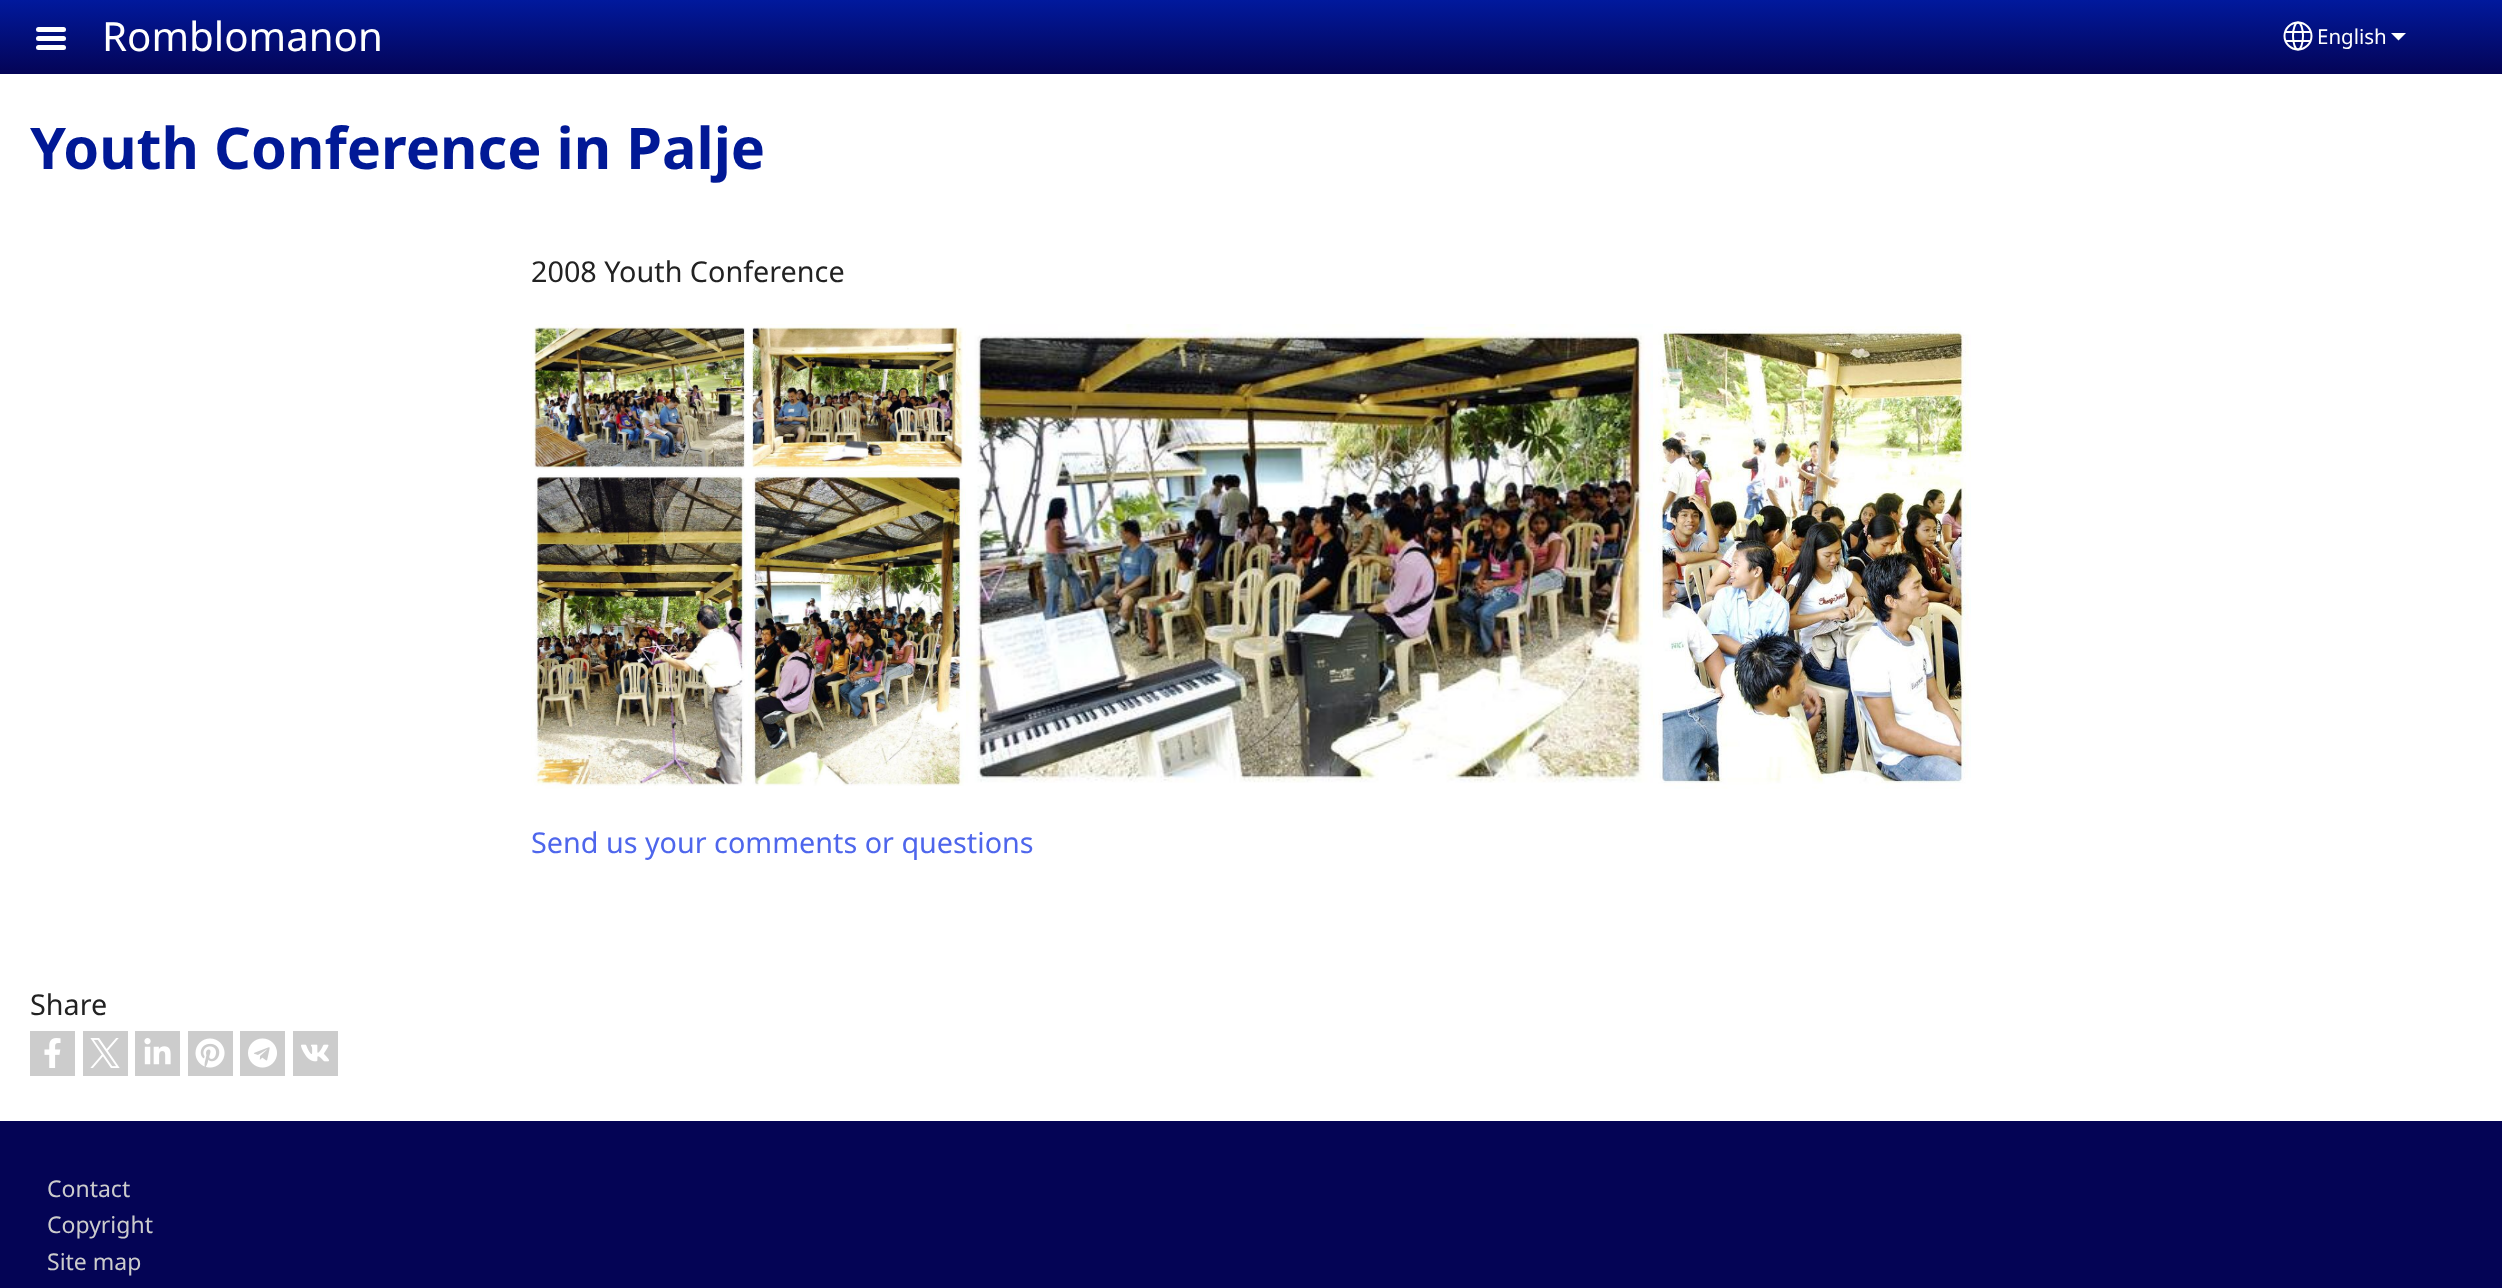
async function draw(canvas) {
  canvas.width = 2502
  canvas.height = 1288
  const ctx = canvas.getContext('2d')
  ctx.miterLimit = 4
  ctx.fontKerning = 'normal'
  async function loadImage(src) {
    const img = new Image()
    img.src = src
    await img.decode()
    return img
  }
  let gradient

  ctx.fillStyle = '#fff'
  ctx.fillRect(0, 0, 2502, 1288)
  gradient = ctx.createLinearGradient(1251, 0, 1251, 74)
  gradient.addColorStop(0, '#01199d')
  gradient.addColorStop(1, '#040456')
  ctx.fillStyle = gradient
  ctx.fillRect(0, 0, 2502, 74)
  ctx.fillStyle = '#fffffe'
  ctx.beginPath()
  ctx.roundRect(36, 27, 30, 5, 2.5)
  ctx.fill()
  ctx.beginPath()
  ctx.roundRect(36, 36, 30, 5, 2.5)
  ctx.fill()
  ctx.beginPath()
  ctx.roundRect(36, 45, 30, 5, 2.5)
  ctx.fill()
  ctx.font = '40.25px Noto Sans'
  ctx.fillText('Romblomanon', 102, 51)
  ctx.beginPath()
  ctx.arc(2298, 36, 13.5, 0, 2 * Math.PI)
  ctx.strokeStyle = '#fffffe'
  ctx.lineWidth = 2
  ctx.stroke()
  ctx.beginPath()
  ctx.ellipse(2298, 36, 5, 13.5, 0, 0, 2 * Math.PI)
  ctx.stroke()
  ctx.fillRect(2285, 31, 26, 2)
  ctx.fillRect(2285, 40, 26, 2)
  ctx.font = '20.5px Noto Sans'
  ctx.fillText('English', 2317, 44)
  ctx.beginPath()
  ctx.moveTo(2391, 33)
  ctx.lineTo(2406, 33)
  ctx.lineTo(2398.5, 40.5)
  ctx.closePath()
  ctx.fill()
  ctx.font = 'bold 57.6px Noto Sans'
  ctx.fillStyle = '#011996'
  ctx.fillText('Youth Conference in Palje', 30, 169)
  ctx.font = '28.75px Noto Sans'
  ctx.fillStyle = '#222'
  ctx.fillText('2008 Youth Conference', 531, 282)
  ctx.drawImage(await loadImage('image0.png'), 531, 324, 218, 145)
  ctx.drawImage(await loadImage('image1.png'), 748, 324, 218, 145)
  ctx.drawImage(await loadImage('image2.png'), 966, 324, 687, 459)
  ctx.drawImage(await loadImage('image3.png'), 1653, 326, 318, 463)
  ctx.drawImage(await loadImage('image4.png'), 531, 475, 218, 314)
  ctx.drawImage(await loadImage('image5.png'), 748, 471, 218, 315)
  ctx.fillStyle = '#4e66ec'
  ctx.fillText('Send us your comments or questions', 531, 853)
  ctx.fillStyle = '#222'
  ctx.fillText('Share', 30, 1015)
  ctx.fillStyle = '#ccc'
  ctx.fillRect(30, 1031, 45, 45)
  ctx.drawImage(await loadImage('image6.png'), 44, 1038, 17, 30)
  ctx.fillRect(83, 1031, 45, 45)
  ctx.drawImage(await loadImage('image7.png'), 90, 1038, 30, 30)
  ctx.fillRect(135, 1031, 45, 45)
  ctx.drawImage(await loadImage('image8.png'), 144, 1038, 27, 27)
  ctx.fillRect(188, 1031, 45, 45)
  ctx.drawImage(await loadImage('image9.png'), 195, 1038, 30, 30)
  ctx.fillRect(240, 1031, 45, 45)
  ctx.drawImage(await loadImage('image10.png'), 248, 1038, 29, 30)
  ctx.fillRect(293, 1031, 45, 45)
  ctx.drawImage(await loadImage('image11.png'), 301, 1044, 28, 18)
  ctx.fillStyle = '#040455'
  ctx.fillRect(0, 1121, 2502, 167)
  ctx.font = '23px Noto Sans'
  ctx.fillStyle = '#ccc'
  ctx.fillText('Contact', 47, 1197)
  ctx.fillText('Copyright', 47, 1233)
  ctx.fillText('Site map', 47, 1270)
}

draw(document.querySelector('canvas'))
